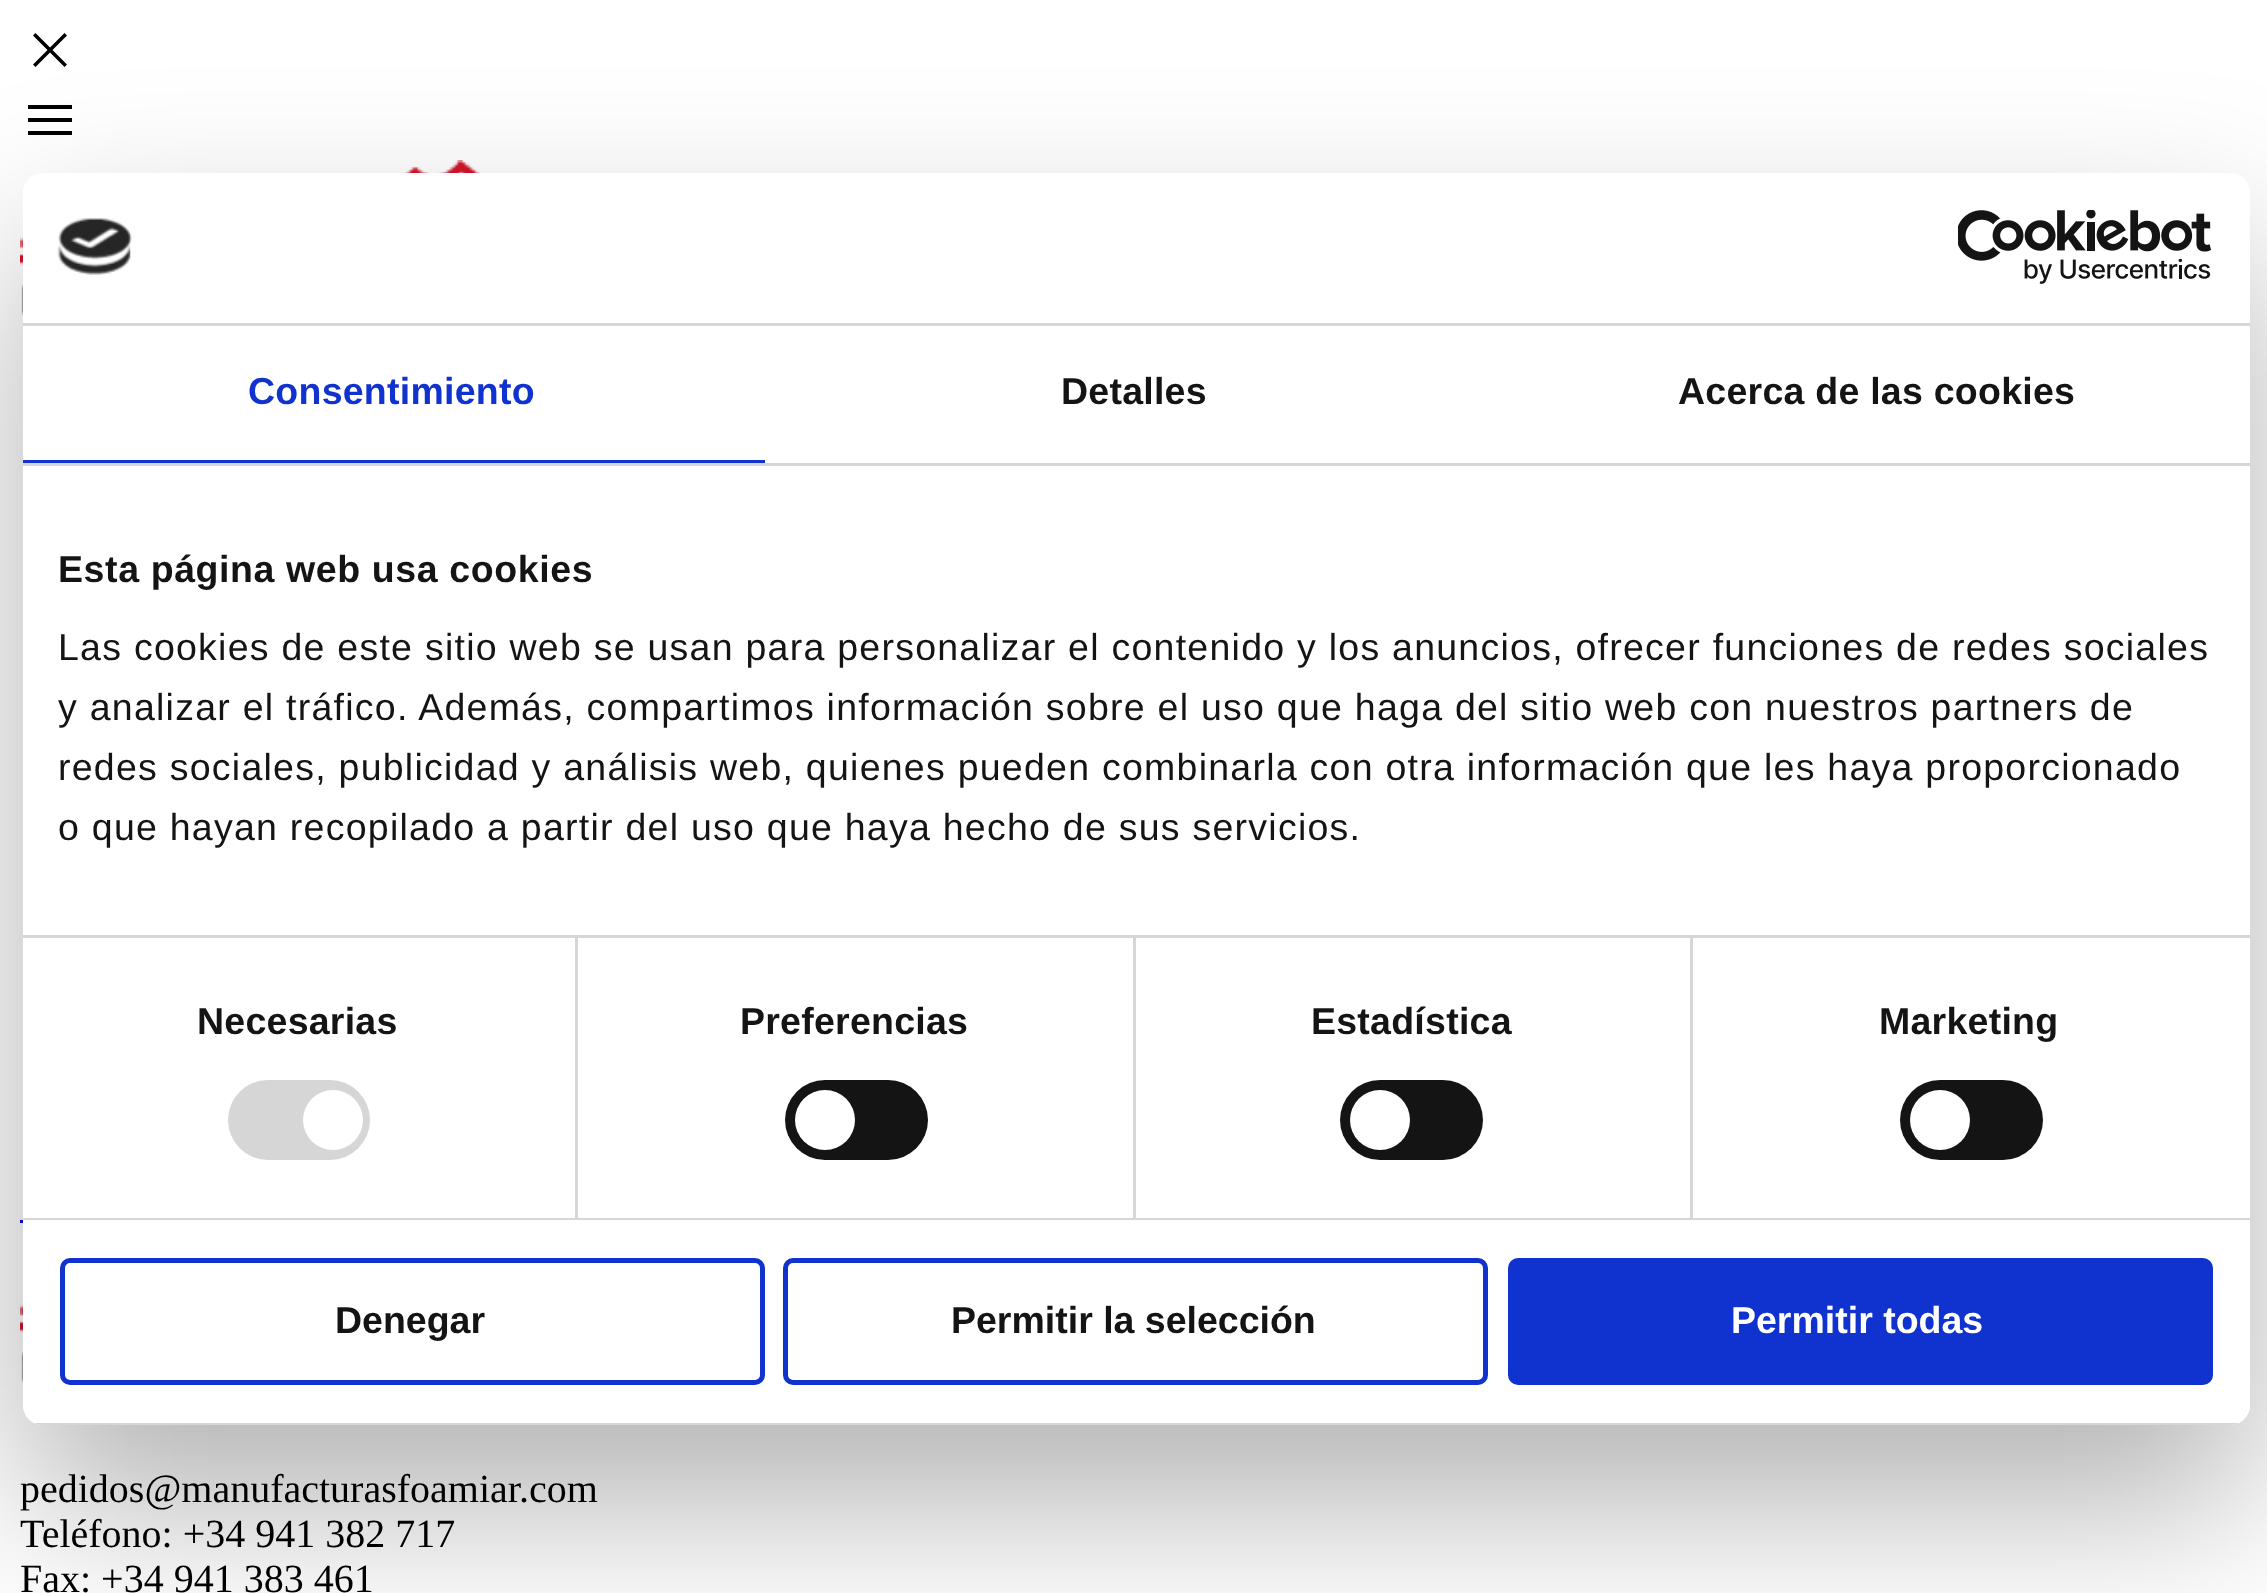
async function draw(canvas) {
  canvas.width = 2267
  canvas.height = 1593
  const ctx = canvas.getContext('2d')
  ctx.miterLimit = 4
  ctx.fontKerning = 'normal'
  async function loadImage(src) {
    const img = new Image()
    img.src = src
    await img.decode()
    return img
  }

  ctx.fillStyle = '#fff'
  ctx.fillRect(0, 0, 2267, 1593)
  ctx.fillStyle = '#000'
  ctx.beginPath()
  ctx.moveTo(35.5, 67)
  ctx.lineTo(33, 64.5)
  ctx.lineTo(47.5, 50)
  ctx.lineTo(33, 35.5)
  ctx.lineTo(35.5, 33)
  ctx.lineTo(50, 47.5)
  ctx.lineTo(64.5, 33)
  ctx.lineTo(67, 35.5)
  ctx.lineTo(52.5, 50)
  ctx.lineTo(67, 64.5)
  ctx.lineTo(64.5, 67)
  ctx.lineTo(50, 52.5)
  ctx.closePath()
  ctx.fill()
  ctx.beginPath()
  ctx.moveTo(28, 135)
  ctx.lineTo(28, 131)
  ctx.lineTo(72, 131)
  ctx.lineTo(72, 135)
  ctx.closePath()
  ctx.moveTo(28, 122)
  ctx.lineTo(28, 118)
  ctx.lineTo(72, 118)
  ctx.lineTo(72, 122)
  ctx.closePath()
  ctx.moveTo(28, 109)
  ctx.lineTo(28, 105)
  ctx.lineTo(72, 105)
  ctx.lineTo(72, 109)
  ctx.closePath()
  ctx.fill()
  ctx.drawImage(await loadImage('image2.png'), 20, 160, 461, 156)
  ctx.fillStyle = '#00e'
  ctx.fillRect(20, 1220, 3, 3)
  ctx.drawImage(await loadImage('image3.png'), 20, 1304, 3, 79)
  ctx.save()
  ctx.beginPath()
  ctx.moveTo(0, 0)
  ctx.lineTo(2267, 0)
  ctx.lineTo(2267, 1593)
  ctx.lineTo(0, 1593)
  ctx.closePath()
  ctx.moveTo(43, 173)
  ctx.lineTo(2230, 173)
  ctx.bezierCurveTo(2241, 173, 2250, 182, 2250, 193)
  ctx.lineTo(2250, 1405)
  ctx.bezierCurveTo(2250, 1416, 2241, 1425, 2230, 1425)
  ctx.lineTo(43, 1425)
  ctx.bezierCurveTo(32, 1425, 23, 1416, 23, 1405)
  ctx.lineTo(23, 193)
  ctx.bezierCurveTo(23, 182, 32, 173, 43, 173)
  ctx.closePath()
  ctx.clip('evenodd')
  ctx.fillStyle = '#0000004d'
  ctx.filter = 'blur(85px)'
  ctx.beginPath()
  ctx.roundRect(23, 253, 2227, 1252, 20)
  ctx.fill()
  ctx.filter = 'none'
  ctx.restore()
  ctx.fillStyle = '#fff'
  ctx.beginPath()
  ctx.roundRect(23, 173, 2227, 1252, 20)
  ctx.fill()
  ctx.fillStyle = '#d6d6d6'
  ctx.fillRect(23, 323, 2227, 3)
  ctx.drawImage(await loadImage('image0.png'), 57, 218, 75, 57)
  ctx.drawImage(await loadImage('image1.png'), 1958, 210, 253, 74)
  ctx.fillRect(23, 463, 2227, 3)
  ctx.fillStyle = '#1032cf'
  ctx.fillRect(23, 460, 742, 3)
  ctx.letterSpacing = '0.25px'
  ctx.font = 'bold 37.5px Liberation Sans'
  ctx.fillText('Consentimiento', 248, 404)
  ctx.fillStyle = '#141414'
  ctx.fillText('Detalles', 1061, 404)
  ctx.fillText('Acerca de las cookies', 1678, 404)
  ctx.fillStyle = '#d6d6d6'
  ctx.fillRect(23, 935, 2227, 3)
  ctx.letterSpacing = '0.6px'
  ctx.fillStyle = '#141414'
  ctx.fillText('Esta página web usa cookies', 58, 582)
  ctx.letterSpacing = '1.25px'
  ctx.font = '37.5px Liberation Sans'
  ctx.fillText('Las cookies de este sitio web se usan para personalizar el contenido y los anuncios, ofrecer funciones de redes sociales', 58, 660)
  ctx.fillText('y analizar el tráfico. Además, compartimos información sobre el uso que haga del sitio web con nuestros partners de', 58, 720)
  ctx.fillText('redes sociales, publicidad y análisis web, quienes pueden combinarla con otra información que les haya proporcionado', 58, 780)
  ctx.fillText('o que hayan recopilado a partir del uso que haya hecho de sus servicios.', 58, 840)
  ctx.fillStyle = '#d6d6d6'
  ctx.fillRect(23, 1218, 2227, 2)
  ctx.fillRect(575, 938, 3, 280)
  ctx.letterSpacing = '0.25px'
  ctx.font = 'bold 37.5px Liberation Sans'
  ctx.fillStyle = '#141414'
  ctx.fillText('Necesarias', 197, 1034)
  ctx.fillStyle = '#d6d6d6'
  ctx.beginPath()
  ctx.roundRect(228, 1080, 142, 80, 40)
  ctx.fill()
  ctx.fillStyle = '#fff'
  ctx.beginPath()
  ctx.arc(333, 1120, 30, 0, 2 * Math.PI)
  ctx.fill()
  ctx.fillStyle = '#d6d6d6'
  ctx.fillRect(1133, 938, 3, 280)
  ctx.fillStyle = '#141414'
  ctx.fillText('Preferencias', 740, 1034)
  ctx.beginPath()
  ctx.roundRect(785, 1080, 143, 80, 40)
  ctx.fill()
  ctx.fillStyle = '#fff'
  ctx.beginPath()
  ctx.arc(825, 1120, 30, 0, 2 * Math.PI)
  ctx.fill()
  ctx.fillStyle = '#d6d6d6'
  ctx.fillRect(1690, 938, 3, 280)
  ctx.fillStyle = '#141414'
  ctx.fillText('Estadística', 1311, 1034)
  ctx.beginPath()
  ctx.roundRect(1340, 1080, 143, 80, 40)
  ctx.fill()
  ctx.fillStyle = '#fff'
  ctx.beginPath()
  ctx.arc(1380, 1120, 30, 0, 2 * Math.PI)
  ctx.fill()
  ctx.fillStyle = '#141414'
  ctx.fillText('Marketing', 1879, 1034)
  ctx.beginPath()
  ctx.roundRect(1900, 1080, 143, 80, 40)
  ctx.fill()
  ctx.fillStyle = '#fff'
  ctx.beginPath()
  ctx.arc(1940, 1120, 30, 0, 2 * Math.PI)
  ctx.fill()
  ctx.save()
  ctx.beginPath()
  ctx.roundRect(23, 173, 2227, 1252, 20)
  ctx.clip()
  ctx.fillStyle = '#d6d6d6'
  ctx.fillRect(34, 1423, 2205, 2)
  ctx.restore()
  ctx.beginPath()
  ctx.roundRect(62.5, 1260.5, 700, 122, 7.5)
  ctx.strokeStyle = '#1032cf'
  ctx.lineWidth = 5
  ctx.stroke()
  ctx.letterSpacing = '0px'
  ctx.fillStyle = '#141414'
  ctx.fillText('Denegar', 335, 1333)
  ctx.beginPath()
  ctx.roundRect(785.5, 1260.5, 700, 122, 7.5)
  ctx.stroke()
  ctx.fillText('Permitir la selección', 951, 1333)
  ctx.fillStyle = '#1032cf'
  ctx.beginPath()
  ctx.roundRect(1510.5, 1260.5, 700, 122, 7.5)
  ctx.fill()
  ctx.stroke()
  ctx.fillStyle = '#fff'
  ctx.fillText('Permitir todas', 1731, 1333)
  ctx.font = '40px Liberation Serif'
  ctx.fillStyle = '#000'
  ctx.fillText('pedidos@manufacturasfoamiar.com', 20, 1502)
  ctx.fillText('Teléfono: +34 941 382 717', 20, 1547)
  ctx.fillText('Fax: +34 941 383 461', 20, 1592)
}

draw(document.querySelector('canvas'))
